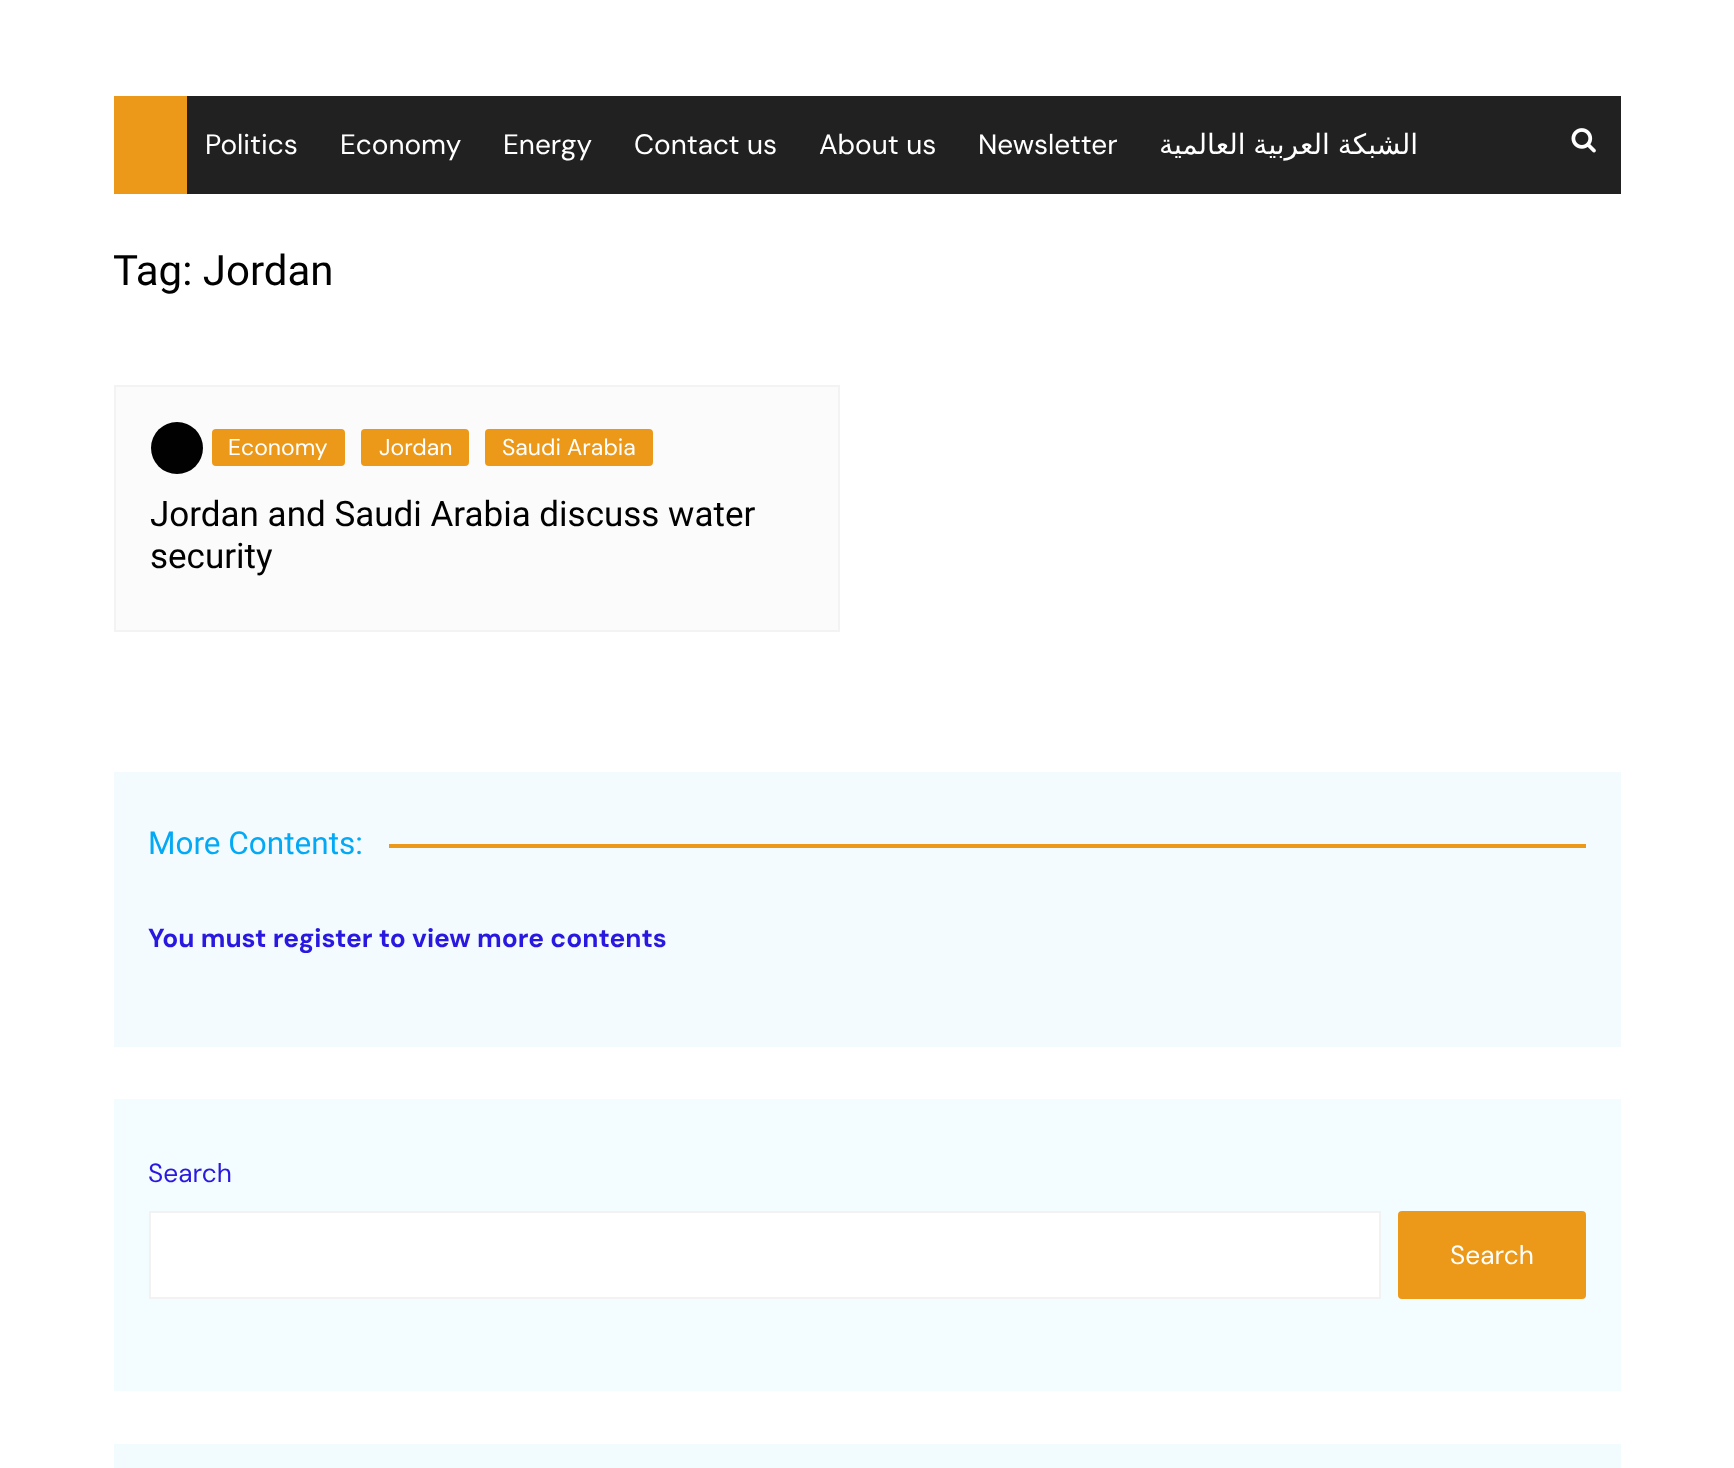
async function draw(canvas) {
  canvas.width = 1734
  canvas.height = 1468
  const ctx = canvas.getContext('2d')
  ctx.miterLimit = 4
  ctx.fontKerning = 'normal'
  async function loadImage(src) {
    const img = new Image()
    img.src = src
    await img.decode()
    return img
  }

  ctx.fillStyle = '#fff'
  ctx.fillRect(0, 0, 1734, 1468)
  ctx.fillStyle = '#212121'
  ctx.fillRect(187, 96, 1434, 98)
  ctx.fillStyle = '#ec9919'
  ctx.fillRect(114, 96, 73, 98)
  ctx.font = '28px DM Sans'
  ctx.fillStyle = '#fff'
  ctx.fillText('Politics', 205, 154)
  ctx.fillText('Economy', 340, 154)
  ctx.fillText('Energy', 503, 154)
  ctx.fillText('Contact us', 634, 154)
  ctx.fillText('About us', 819, 154)
  ctx.fillText('Newsletter', 978, 154)
  ctx.wordSpacing = '-1px'
  ctx.direction = 'rtl'
  ctx.font = '28px DejaVu Sans'
  ctx.fillText('الشبكة العربية العالمية', 1418, 154)
  ctx.drawImage(await loadImage('image0.png'), 1571, 128, 25, 25)
  ctx.wordSpacing = '0px'
  ctx.direction = 'ltr'
  ctx.font = '42px Roboto'
  ctx.fillStyle = '#010101'
  ctx.fillText('Tag: Jordan', 113, 285)
  ctx.fillStyle = '#fbfbfb'
  ctx.beginPath()
  ctx.rect(115, 386, 724, 245)
  ctx.fill()
  ctx.strokeStyle = '#f3f3f3'
  ctx.lineWidth = 2
  ctx.stroke()
  ctx.fillStyle = '#010101'
  ctx.beginPath()
  ctx.arc(177, 448, 26, 0, 2 * Math.PI)
  ctx.fill()
  ctx.fillStyle = '#ec9919'
  ctx.beginPath()
  ctx.roundRect(212, 429, 133, 37, 4)
  ctx.fill()
  ctx.font = '23px DM Sans'
  ctx.fillStyle = '#fff'
  ctx.fillText('Economy', 228, 455)
  ctx.fillStyle = '#ec9919'
  ctx.beginPath()
  ctx.roundRect(361, 429, 108, 37, 4)
  ctx.fill()
  ctx.fillStyle = '#fff'
  ctx.fillText('Jordan', 379, 455)
  ctx.fillStyle = '#ec9919'
  ctx.beginPath()
  ctx.roundRect(485, 429, 168, 37, 4)
  ctx.fill()
  ctx.fillStyle = '#fff'
  ctx.fillText('Saudi Arabia', 502, 455)
  ctx.font = '35px Roboto'
  ctx.fillStyle = '#010101'
  ctx.fillText('Jordan and Saudi Arabia discuss water', 150, 526)
  ctx.fillText('security', 150, 568)
  ctx.fillStyle = '#f3fbff'
  ctx.fillRect(114, 772, 1507, 275)
  ctx.font = '31.5px Roboto'
  ctx.fillStyle = '#03a9f4'
  ctx.fillText('More Contents:', 148, 854)
  ctx.fillStyle = '#ec9919'
  ctx.fillRect(389, 844, 1197, 4)
  ctx.font = 'bold 26.25px DM Sans'
  ctx.fillStyle = '#2918e0'
  ctx.fillText('You must register to view more contents', 148, 947)
  ctx.fillStyle = '#f3fcff'
  ctx.fillRect(114, 1099, 1507, 292)
  ctx.font = '26.25px DM Sans'
  ctx.fillStyle = '#2918e0'
  ctx.fillText('Search', 148, 1182)
  ctx.fillStyle = '#fff'
  ctx.beginPath()
  ctx.rect(150, 1212, 1230, 86)
  ctx.fill()
  ctx.strokeStyle = '#f2f2f2'
  ctx.stroke()
  ctx.fillStyle = '#ec9919'
  ctx.beginPath()
  ctx.roundRect(1398, 1211, 188, 88, 4)
  ctx.fill()
  ctx.fillStyle = '#fff'
  ctx.fillText('Search', 1450, 1264)
  ctx.fillStyle = '#f2fbfe'
  ctx.fillRect(114, 1444, 1507, 24)
}

draw(document.querySelector('canvas'))
